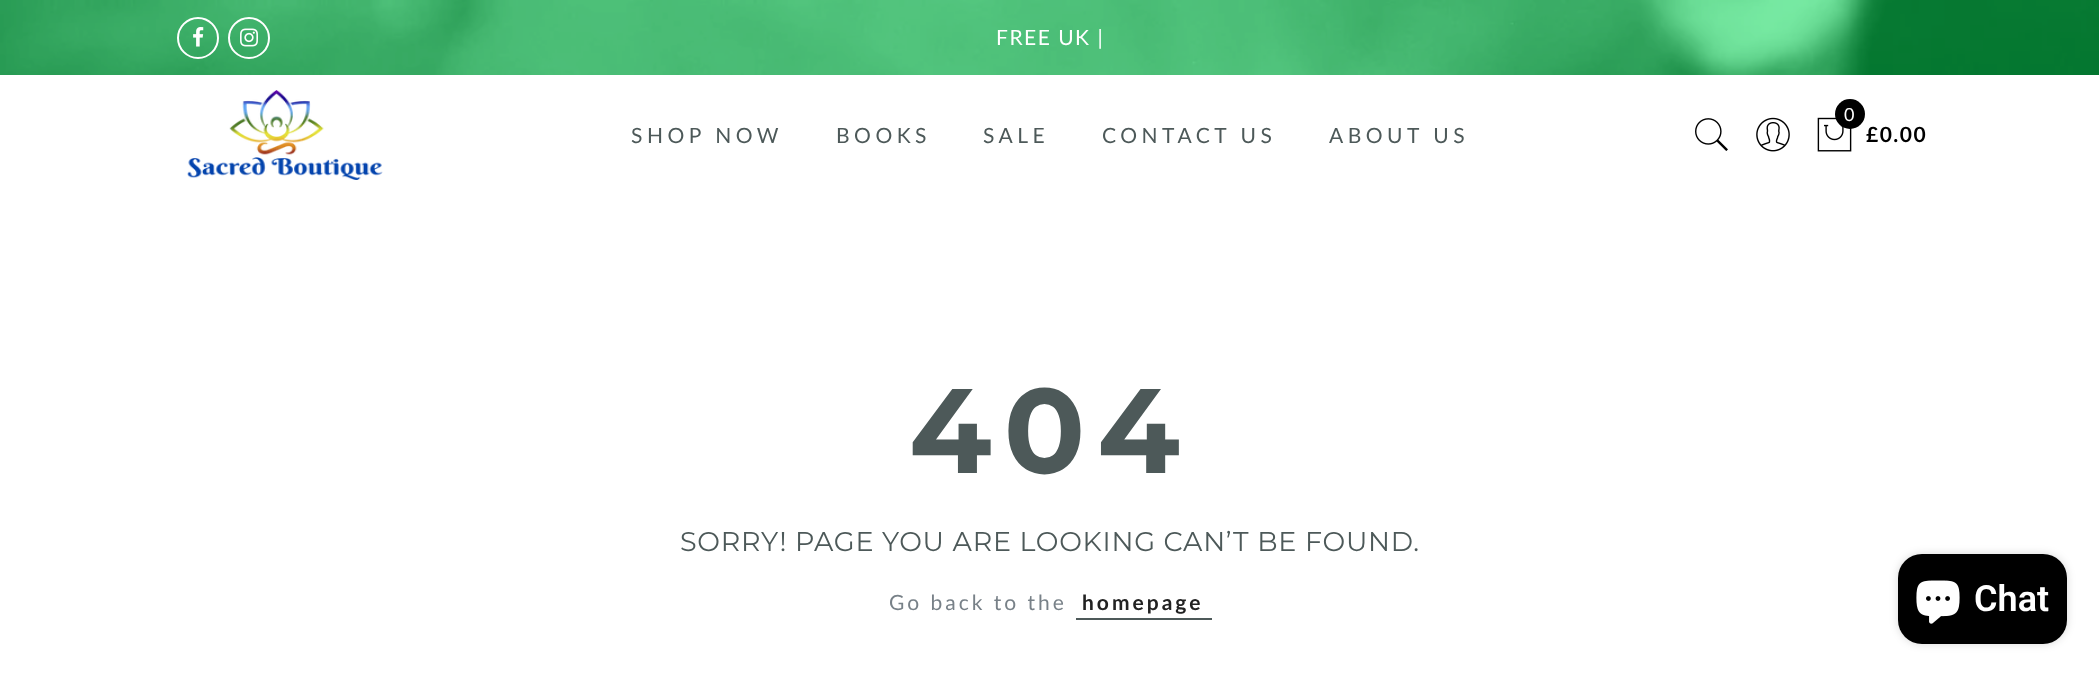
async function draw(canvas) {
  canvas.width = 2099
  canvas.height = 675
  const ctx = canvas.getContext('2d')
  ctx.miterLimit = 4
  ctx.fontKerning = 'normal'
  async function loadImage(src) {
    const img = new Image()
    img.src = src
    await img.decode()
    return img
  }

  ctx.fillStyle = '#fff'
  ctx.fillRect(0, 0, 2099, 675)
  ctx.drawImage(await loadImage('image0.png'), 0, 0, 2099, 75)
  ctx.beginPath()
  ctx.arc(198, 38, 20, 0, 2 * Math.PI)
  ctx.strokeStyle = '#fff'
  ctx.lineWidth = 2
  ctx.stroke()
  ctx.drawImage(await loadImage('image1.png'), 193, 27, 11, 20)
  ctx.beginPath()
  ctx.arc(249, 38, 20, 0, 2 * Math.PI)
  ctx.stroke()
  ctx.drawImage(await loadImage('image2.png'), 240, 28, 18, 19)
  ctx.letterSpacing = '1.5px'
  ctx.font = '21px Lato'
  ctx.fillText('FREE UK |', 996, 45)
  ctx.drawImage(await loadImage('image3.png'), 187, 90, 196, 90)
  ctx.letterSpacing = '4.5px'
  ctx.fillStyle = '#4d5959'
  ctx.fillText('SHOP NOW', 631, 143)
  ctx.fillText('BOOKS', 836, 143)
  ctx.fillText('SALE', 983, 143)
  ctx.fillText('CONTACT US', 1102, 143)
  ctx.fillText('ABOUT US', 1329, 143)
  ctx.drawImage(await loadImage('image4.png'), 1817, 117, 35, 35)
  ctx.fillStyle = '#000'
  ctx.beginPath()
  ctx.arc(1850, 114, 15, 0, 2 * Math.PI)
  ctx.fill()
  ctx.letterSpacing = '1.5px'
  ctx.font = '18px Lato'
  ctx.fillStyle = '#fff'
  ctx.fillText('0', 1844, 121)
  ctx.drawImage(await loadImage('image5.png'), 1695, 118, 33, 33)
  ctx.drawImage(await loadImage('image6.png'), 1756, 117, 34, 35)
  ctx.font = 'bold 21px Lato'
  ctx.fillStyle = '#000'
  ctx.fillText('£0.00', 1866, 142)
  ctx.letterSpacing = '12px'
  ctx.font = 'bold 120px Montserrat'
  ctx.fillStyle = '#4d5959'
  ctx.fillText('404', 909, 473)
  ctx.letterSpacing = '0.75px'
  ctx.font = '27px Montserrat'
  ctx.fillText('SORRY! PAGE YOU ARE LOOKING CAN’T BE FOUND.', 680, 551)
  ctx.letterSpacing = '3px'
  ctx.font = '21px Lato'
  ctx.fillStyle = '#788188'
  ctx.fillText('Go back to the', 889, 610)
  ctx.font = 'bold 21px Lato'
  ctx.fillStyle = '#222'
  ctx.fillText('homepage', 1082, 610)
  ctx.fillStyle = '#4d5959'
  ctx.fillRect(1076, 618, 136, 2)
  ctx.fillStyle = '#00000026'
  ctx.filter = 'blur(4px)'
  ctx.beginPath()
  ctx.roundRect(1898, 554, 169, 90, 24)
  ctx.fill()
  ctx.filter = 'none'
  ctx.fillStyle = '#000'
  ctx.beginPath()
  ctx.roundRect(1898, 554, 169, 90, 24)
  ctx.fill()
  ctx.drawImage(await loadImage('image7.png'), 1916, 580, 44, 44)
  ctx.letterSpacing = '0px'
  ctx.font = '600 36px Roboto'
  ctx.fillStyle = '#fff'
  ctx.fillText('Chat', 1974, 611)
}

draw(document.querySelector('canvas'))
